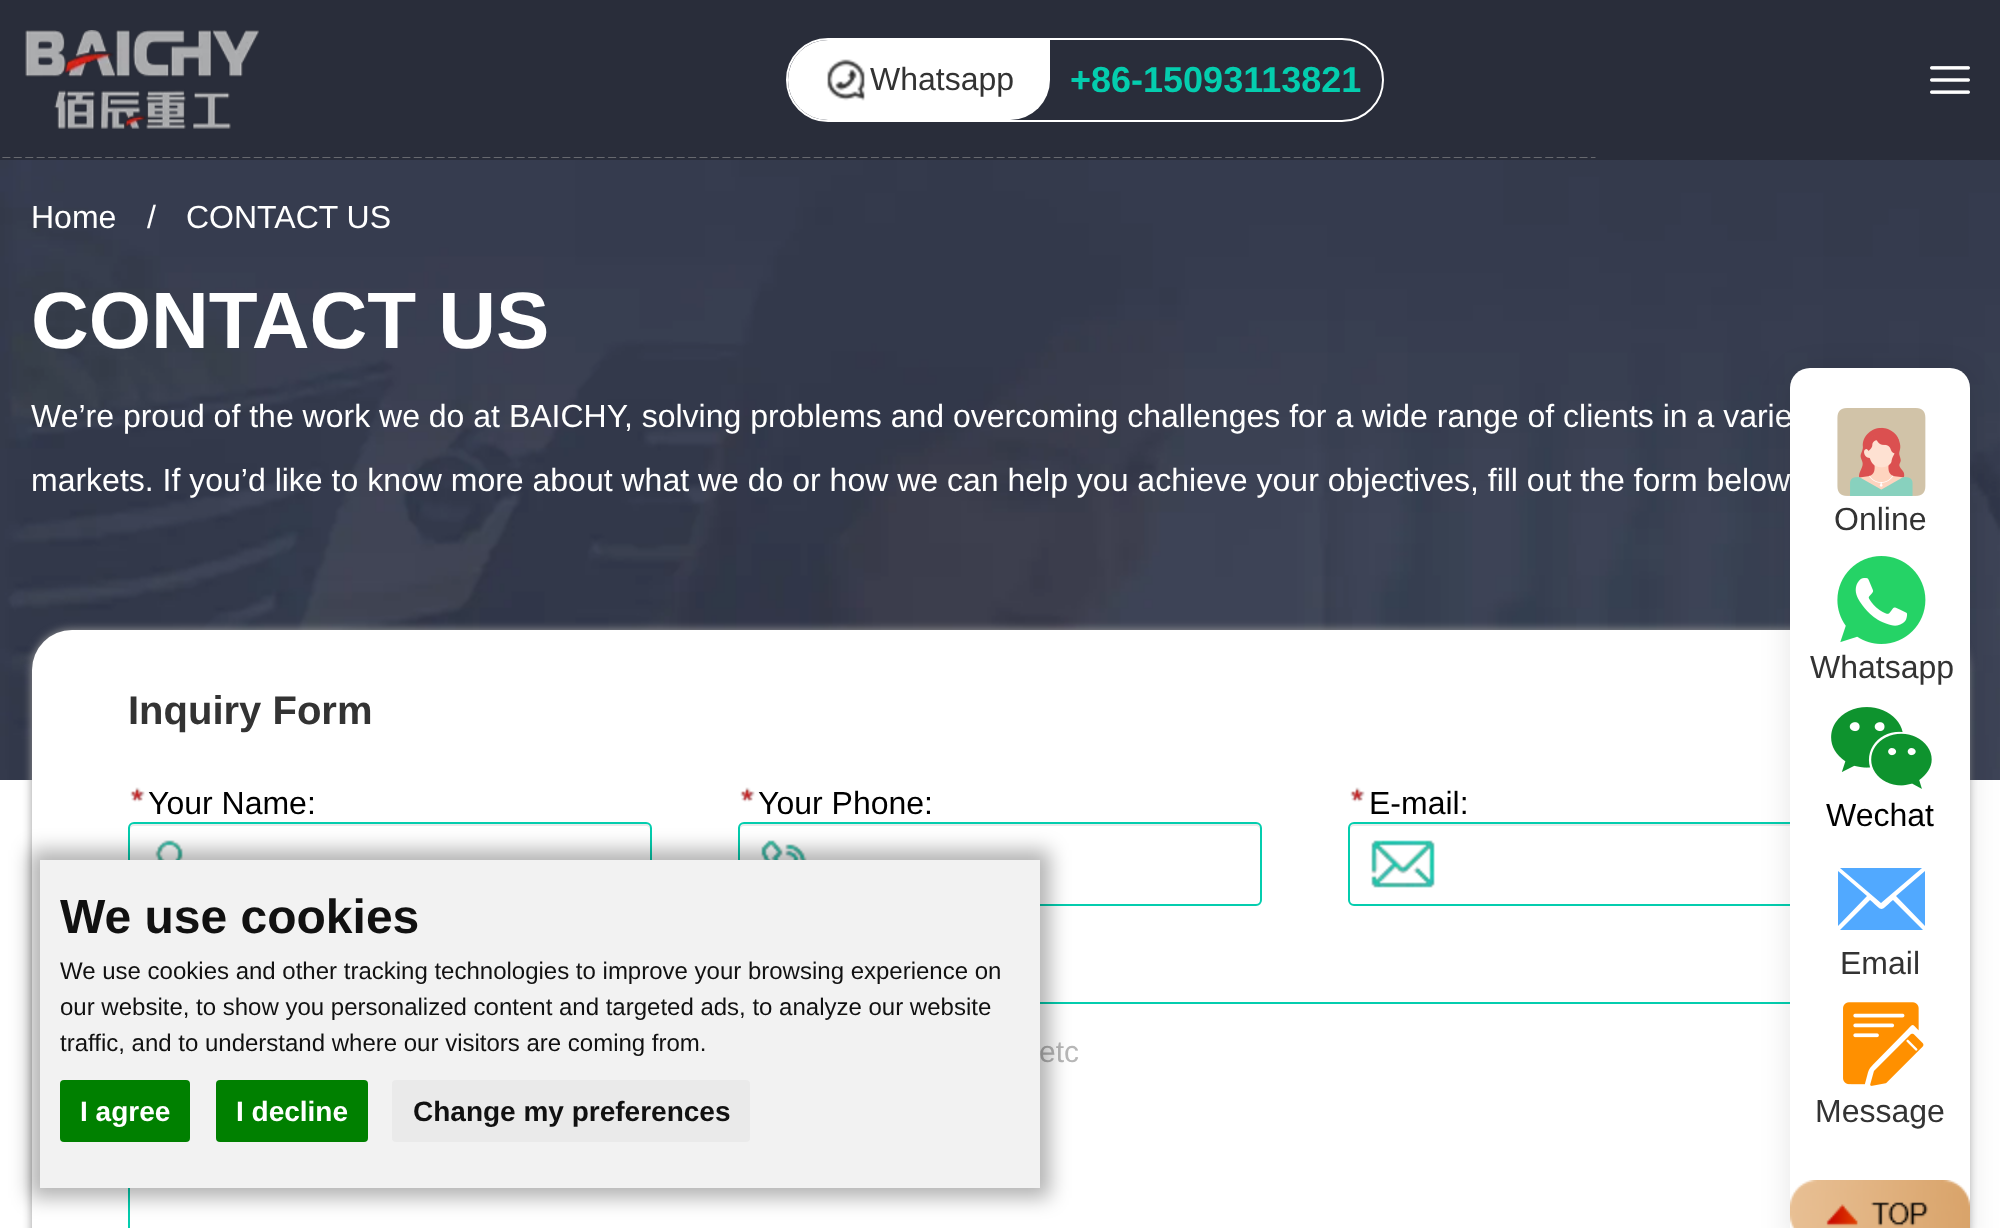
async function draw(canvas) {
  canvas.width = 2000
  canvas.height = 1228
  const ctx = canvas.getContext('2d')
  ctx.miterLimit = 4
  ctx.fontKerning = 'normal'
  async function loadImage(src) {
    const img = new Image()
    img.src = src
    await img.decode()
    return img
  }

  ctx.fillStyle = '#fff'
  ctx.fillRect(0, 0, 2000, 1228)
  ctx.fillStyle = '#292d3a'
  ctx.fillRect(0, 0, 2000, 160)
  ctx.drawImage(await loadImage('image0.png'), 25, 30, 234, 99)
  ctx.beginPath()
  ctx.roundRect(787, 39, 596, 82, 41)
  ctx.strokeStyle = '#fff'
  ctx.lineWidth = 2
  ctx.stroke()
  ctx.fillStyle = '#fff'
  ctx.beginPath()
  ctx.roundRect(788, 40, 262, 80, [40, 0, 40, 40])
  ctx.fill()
  ctx.drawImage(await loadImage('image1.png'), 827, 59, 38, 42)
  ctx.font = '32px Liberation Sans'
  ctx.fillStyle = '#333'
  ctx.fillText('Whatsapp', 870, 90)
  ctx.font = 'bold 36px Liberation Sans'
  ctx.fillStyle = '#04cdae'
  ctx.fillText('+86-15093113821', 1070, 92)
  ctx.drawImage(await loadImage('image2.png'), 1930, 66, 40, 28)
  ctx.drawImage(await loadImage('image3.png'), 2, 157, 1594, 1)
  ctx.drawImage(await loadImage('image4.png'), 0, 160, 2000, 620)
  ctx.font = '32px Liberation Sans'
  ctx.fillStyle = '#fff'
  ctx.fillText('Home', 31, 228)
  ctx.fillText('/', 147, 228)
  ctx.fillText('CONTACT US', 186, 228)
  ctx.font = 'bold 80px Liberation Sans'
  ctx.fillText('CONTACT US', 31, 348)
  ctx.font = '32px Liberation Sans'
  ctx.fillText('We’re proud of the work we do at BAICHY, solving problems and overcoming challenges for a wide range of clients in a varie', 31, 427)
  ctx.fillText('markets. If you’d like to know more about what we do or how we can help you achieve your objectives, fill out the form below', 31, 491)
  ctx.fillStyle = '#999'
  ctx.filter = 'blur(5px)'
  ctx.beginPath()
  ctx.roundRect(32, 630, 1936, 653, 40)
  ctx.fill()
  ctx.filter = 'none'
  ctx.fillStyle = '#fff'
  ctx.beginPath()
  ctx.roundRect(32, 630, 1936, 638, 40)
  ctx.fill()
  ctx.font = 'bold 40px Liberation Sans'
  ctx.fillStyle = '#333'
  ctx.fillText('Inquiry Form', 128, 724)
  ctx.drawImage(await loadImage('image5.png'), 130, 787, 15, 15)
  ctx.font = '32px Liberation Sans'
  ctx.fillStyle = '#000'
  ctx.fillText('Your Name:', 148, 814)
  ctx.fillStyle = '#ebebeb'
  ctx.beginPath()
  ctx.moveTo(134, 826)
  ctx.lineTo(646, 826)
  ctx.bezierCurveTo(648, 826, 650, 828, 650, 830)
  ctx.lineTo(650, 828)
  ctx.bezierCurveTo(650, 826, 648, 824, 646, 824)
  ctx.lineTo(134, 824)
  ctx.bezierCurveTo(132, 824, 130, 826, 130, 828)
  ctx.lineTo(130, 830)
  ctx.bezierCurveTo(130, 828, 132, 826, 134, 826)
  ctx.closePath()
  ctx.fill()
  ctx.beginPath()
  ctx.roundRect(129, 823, 522, 82, 5)
  ctx.strokeStyle = '#04cdae'
  ctx.stroke()
  ctx.drawImage(await loadImage('image6.png'), 155, 840, 28, 20)
  ctx.drawImage(await loadImage('image5.png'), 740, 787, 15, 15)
  ctx.fillStyle = '#000'
  ctx.fillText('Your Phone:', 758, 814)
  ctx.fillStyle = '#ebebeb'
  ctx.beginPath()
  ctx.moveTo(744, 826)
  ctx.lineTo(1256, 826)
  ctx.bezierCurveTo(1258, 826, 1260, 828, 1260, 830)
  ctx.lineTo(1260, 828)
  ctx.bezierCurveTo(1260, 826, 1258, 824, 1256, 824)
  ctx.lineTo(744, 824)
  ctx.bezierCurveTo(742, 824, 740, 826, 740, 828)
  ctx.lineTo(740, 830)
  ctx.bezierCurveTo(740, 828, 742, 826, 744, 826)
  ctx.closePath()
  ctx.fill()
  ctx.beginPath()
  ctx.roundRect(739, 823, 522, 82, 5)
  ctx.stroke()
  ctx.drawImage(await loadImage('image7.png'), 761, 840, 46, 20)
  ctx.drawImage(await loadImage('image5.png'), 1350, 787, 15, 15)
  ctx.fillStyle = '#000'
  ctx.fillText('E-mail:', 1369, 814)
  ctx.fillStyle = '#ebebeb'
  ctx.beginPath()
  ctx.moveTo(1354, 826)
  ctx.lineTo(1866, 826)
  ctx.bezierCurveTo(1868, 826, 1870, 828, 1870, 830)
  ctx.lineTo(1870, 828)
  ctx.bezierCurveTo(1870, 826, 1868, 824, 1866, 824)
  ctx.lineTo(1354, 824)
  ctx.bezierCurveTo(1352, 824, 1350, 826, 1350, 828)
  ctx.lineTo(1350, 830)
  ctx.bezierCurveTo(1350, 828, 1352, 826, 1354, 826)
  ctx.closePath()
  ctx.fill()
  ctx.beginPath()
  ctx.roundRect(1349, 823, 522, 82, 5)
  ctx.stroke()
  ctx.drawImage(await loadImage('image8.png'), 1371, 840, 64, 48)
  ctx.strokeRect(129, 1003, 1742, 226)
  ctx.font = '30px Liberation Sans'
  ctx.fillStyle = '#b7b7b7'
  ctx.fillText('etc', 1039, 1062)
  ctx.fillStyle = '#0000001a'
  ctx.filter = 'blur(15px)'
  ctx.beginPath()
  ctx.roundRect(1790, 372, 180, 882, 20)
  ctx.fill()
  ctx.filter = 'none'
  ctx.fillStyle = '#fff'
  ctx.beginPath()
  ctx.roundRect(1790, 368, 180, 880, 20)
  ctx.fill()
  ctx.drawImage(await loadImage('image9.png'), 1837, 408, 89, 88)
  ctx.font = '32px Liberation Sans'
  ctx.fillStyle = '#333'
  ctx.fillText('Online', 1834, 530)
  ctx.drawImage(await loadImage('image10.png'), 1837, 556, 89, 88)
  ctx.fillText('Whatsapp', 1810, 678)
  ctx.drawImage(await loadImage('image11.png'), 1831, 707, 101, 82)
  ctx.fillStyle = '#000'
  ctx.fillText('Wechat', 1826, 826)
  ctx.fillStyle = '#51a9ff'
  ctx.beginPath()
  ctx.moveTo(1881, 903)
  ctx.lineTo(1840, 868)
  ctx.lineTo(1922, 868)
  ctx.closePath()
  ctx.moveTo(1925, 872)
  ctx.lineTo(1925, 926)
  ctx.lineTo(1896, 896)
  ctx.lineTo(1925, 871)
  ctx.closePath()
  ctx.moveTo(1838, 871)
  ctx.lineTo(1867, 896)
  ctx.lineTo(1838, 926)
  ctx.closePath()
  ctx.moveTo(1893, 900)
  ctx.lineTo(1923, 930)
  ctx.lineTo(1840, 930)
  ctx.lineTo(1870, 900)
  ctx.bezierCurveTo(1884, 912, 1879, 912, 1893, 900)
  ctx.closePath()
  ctx.fill()
  ctx.fillStyle = '#333'
  ctx.fillText('Email', 1840, 974)
  ctx.drawImage(await loadImage('image12.png'), 1843, 1002, 81, 84)
  ctx.fillText('Message', 1815, 1122)
  ctx.drawImage(await loadImage('image13.png'), 1790, 1180, 180, 48)
  ctx.fillStyle = '#0000004d'
  ctx.filter = 'blur(10px)'
  ctx.beginPath()
  ctx.rect(30, 850, 1020, 348)
  ctx.fill()
  ctx.filter = 'none'
  ctx.fillStyle = '#f2f2f2'
  ctx.fillRect(40, 860, 1000, 328)
  ctx.font = 'bold 48px Liberation Sans'
  ctx.fillStyle = '#111'
  ctx.fillText('We use cookies', 60, 933)
  ctx.font = '24px Liberation Sans'
  ctx.fillText('We use cookies and other tracking technologies to improve your browsing experience on', 60, 979)
  ctx.fillText('our website, to show you personalized content and targeted ads, to analyze our website', 60, 1015)
  ctx.fillText('traffic, and to understand where our visitors are coming from.', 60, 1051)
  ctx.fillStyle = '#008000'
  ctx.beginPath()
  ctx.roundRect(60, 1080, 130, 62, 4)
  ctx.fill()
  ctx.font = 'bold 28px Liberation Sans'
  ctx.fillStyle = '#fff'
  ctx.fillText('I agree', 80, 1121)
  ctx.fillStyle = '#008000'
  ctx.beginPath()
  ctx.roundRect(216, 1080, 152, 62, 4)
  ctx.fill()
  ctx.fillStyle = '#fff'
  ctx.fillText('I decline', 236, 1121)
  ctx.fillStyle = '#eaeaea'
  ctx.beginPath()
  ctx.roundRect(392, 1080, 358, 62, 4)
  ctx.fill()
  ctx.fillStyle = '#111'
  ctx.fillText('Change my preferences', 413, 1121)
}

draw(document.querySelector('canvas'))
